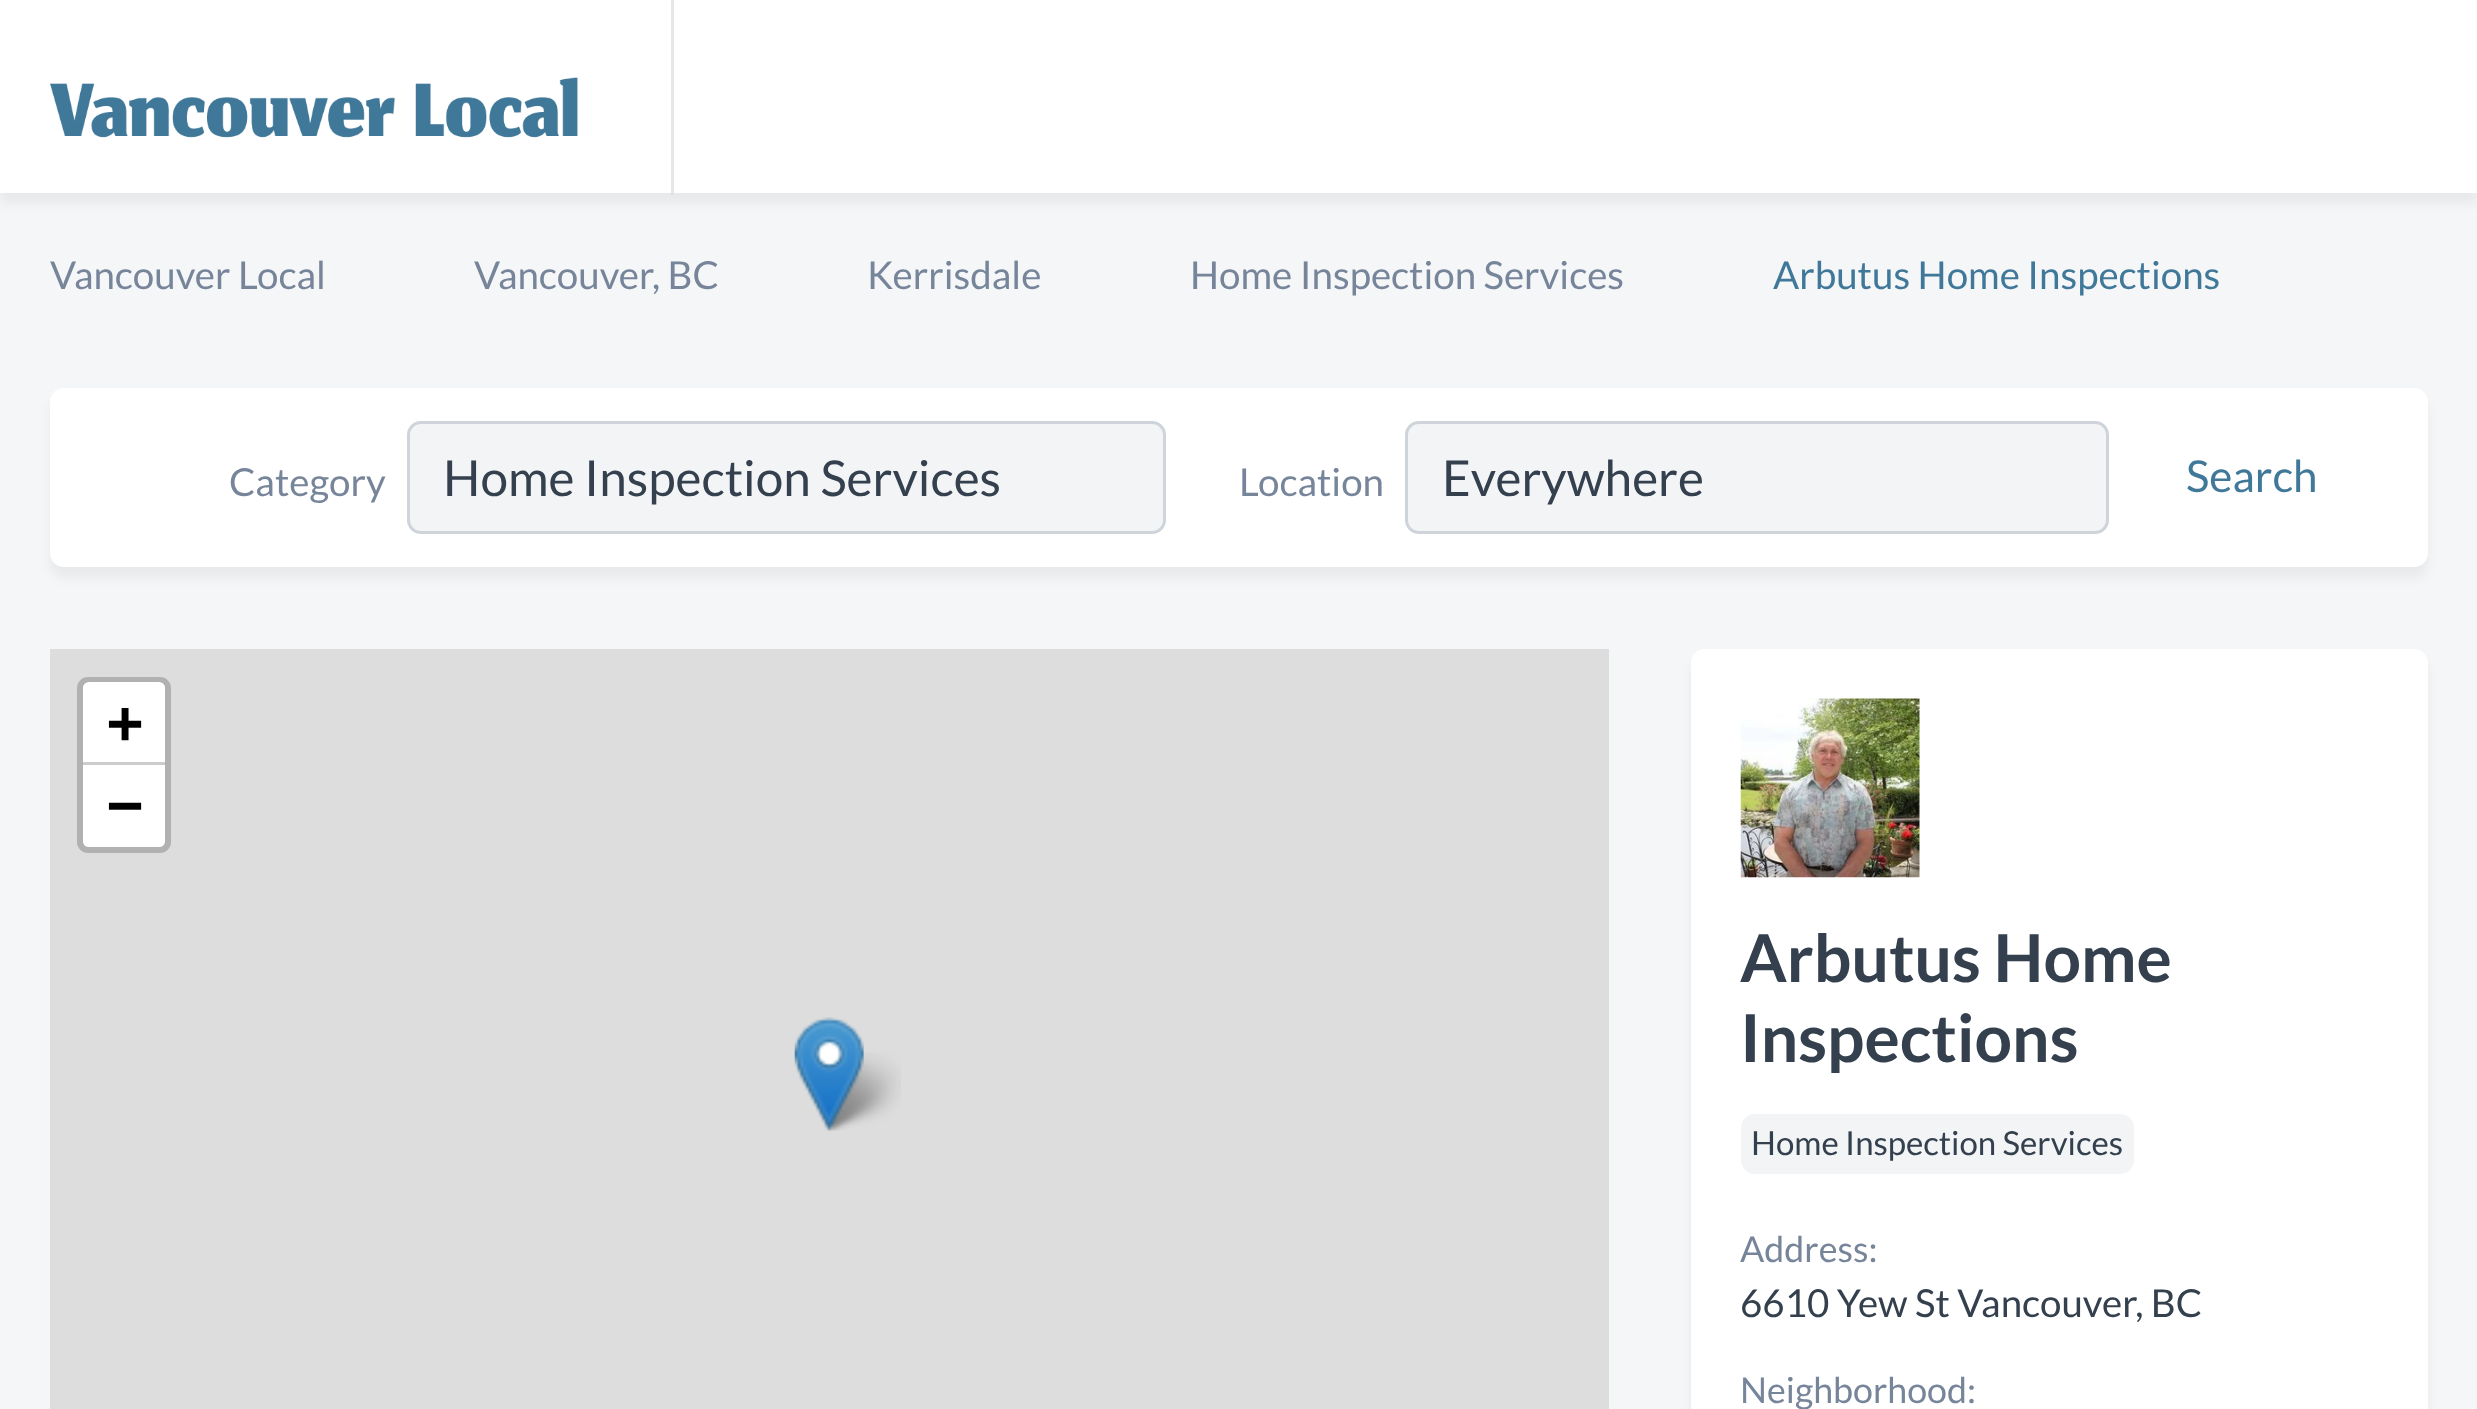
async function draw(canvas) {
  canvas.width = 2477
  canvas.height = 1409
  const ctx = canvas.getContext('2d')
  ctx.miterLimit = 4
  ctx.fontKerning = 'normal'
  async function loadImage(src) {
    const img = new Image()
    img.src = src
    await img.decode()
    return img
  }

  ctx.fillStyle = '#f5f6f8'
  ctx.fillRect(0, 0, 2477, 1409)
  ctx.fillStyle = '#0000000d'
  ctx.filter = 'blur(5.5px)'
  ctx.beginPath()
  ctx.rect(0, 11, 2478, 193)
  ctx.fill()
  ctx.filter = 'none'
  ctx.fillStyle = '#fff'
  ctx.fillRect(0, 0, 2477, 193)
  ctx.drawImage(await loadImage('image0.png'), 50, 77, 528, 61)
  ctx.fillStyle = '#dfdfdfbf'
  ctx.fillRect(671, 0, 3, 195)
  ctx.font = '38.5px Lato'
  ctx.fillStyle = '#77859a'
  ctx.fillText('Vancouver Local', 50, 289)
  ctx.fillText('Vancouver, BC', 474, 289)
  ctx.fillText('Kerrisdale', 867, 289)
  ctx.fillText('Home Inspection Services', 1190, 289)
  ctx.fillStyle = '#407899'
  ctx.fillText('Arbutus Home Inspections', 1773, 289)
  ctx.fillStyle = '#0000000d'
  ctx.filter = 'blur(5.5px)'
  ctx.beginPath()
  ctx.roundRect(50, 399, 2378, 179, 14)
  ctx.fill()
  ctx.filter = 'none'
  ctx.fillStyle = '#fff'
  ctx.beginPath()
  ctx.roundRect(50, 388, 2378, 179, 14)
  ctx.fill()
  ctx.fillStyle = '#77859a'
  ctx.fillText('Category', 229, 496)
  ctx.fillStyle = '#f2f4f6'
  ctx.beginPath()
  ctx.roundRect(408.5, 422.5, 756, 110, 12.5)
  ctx.fill()
  ctx.strokeStyle = '#ced4da'
  ctx.lineWidth = 3
  ctx.stroke()
  ctx.font = '49.5px Lato'
  ctx.fillStyle = '#34404e'
  ctx.fillText('Home Inspection Services', 443, 496)
  ctx.font = '38.5px Lato'
  ctx.fillStyle = '#77859a'
  ctx.fillText('Location', 1239, 496)
  ctx.fillStyle = '#f2f4f6'
  ctx.beginPath()
  ctx.roundRect(1406.5, 422.5, 701, 110, 12.5)
  ctx.fill()
  ctx.stroke()
  ctx.font = '49.5px Lato'
  ctx.fillStyle = '#34404e'
  ctx.fillText('Everywhere', 1442, 496)
  ctx.font = '44px Lato'
  ctx.fillStyle = '#407899'
  ctx.fillText('Search', 2186, 492)
  ctx.fillStyle = '#ddd'
  ctx.fillRect(50, 649, 1559, 760)
  ctx.beginPath()
  ctx.roundRect(80, 680, 88, 170, 8)
  ctx.strokeStyle = '#b1b1b1'
  ctx.lineWidth = 6
  ctx.stroke()
  ctx.fillStyle = '#fff'
  ctx.beginPath()
  ctx.roundRect(83, 682, 82, 83, [6, 6, 0, 0])
  ctx.fill()
  ctx.fillStyle = '#ccc'
  ctx.fillRect(83, 762, 82, 3)
  ctx.font = 'bold 60px DejaVu Sans Mono'
  ctx.fillStyle = '#000'
  ctx.fillText('+', 107, 743)
  ctx.fillStyle = '#fff'
  ctx.beginPath()
  ctx.roundRect(83, 765, 82, 82, [0, 0, 6, 6])
  ctx.fill()
  ctx.fillStyle = '#000'
  ctx.fillText('−', 107, 825)
  ctx.drawImage(await loadImage('image2.png'), 819, 1052, 82, 79)
  ctx.drawImage(await loadImage('image1.png'), 794, 1017, 70, 114)
  ctx.fillStyle = '#0000000d'
  ctx.filter = 'blur(5.5px)'
  ctx.beginPath()
  ctx.roundRect(1691, 660, 737, 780, 14)
  ctx.fill()
  ctx.filter = 'none'
  ctx.fillStyle = '#fff'
  ctx.beginPath()
  ctx.roundRect(1691, 649, 737, 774, 14)
  ctx.fill()
  ctx.drawImage(await loadImage('image3.png'), 1740, 698, 180, 180)
  ctx.font = 'bold 66px Lato'
  ctx.fillStyle = '#34404e'
  ctx.fillText('Arbutus Home', 1740, 982)
  ctx.fillText('Inspections', 1740, 1062)
  ctx.fillStyle = '#f2f4f6'
  ctx.beginPath()
  ctx.roundRect(1741, 1114, 393, 60, 14)
  ctx.fill()
  ctx.font = '33px Lato'
  ctx.fillStyle = '#34404e'
  ctx.fillText('Home Inspection Services', 1751, 1155)
  ctx.font = '35.75px Lato'
  ctx.fillStyle = '#77859a'
  ctx.fillText('Address:', 1740, 1262)
  ctx.font = '38.5px Lato'
  ctx.fillStyle = '#34404e'
  ctx.fillText('6610 Yew St Vancouver, BC', 1740, 1317)
  ctx.font = '35.75px Lato'
  ctx.fillStyle = '#77859a'
  ctx.fillText('Neighborhood:', 1740, 1403)
}

draw(document.querySelector('canvas'))
